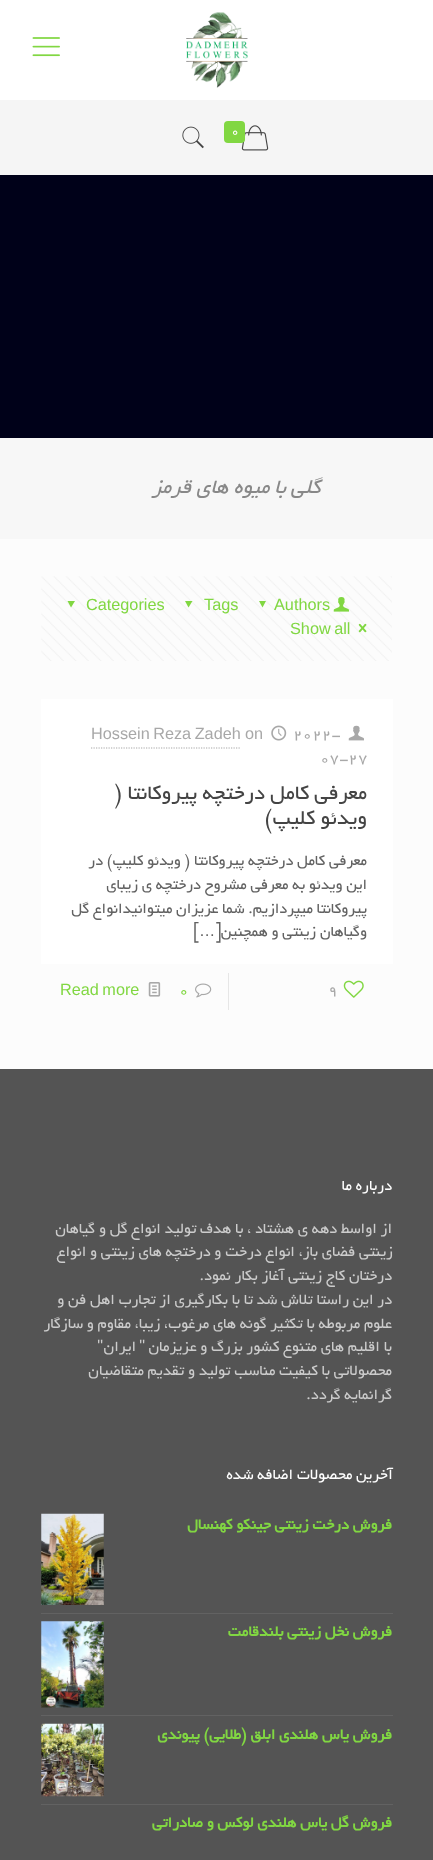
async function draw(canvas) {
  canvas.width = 433
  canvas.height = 1860
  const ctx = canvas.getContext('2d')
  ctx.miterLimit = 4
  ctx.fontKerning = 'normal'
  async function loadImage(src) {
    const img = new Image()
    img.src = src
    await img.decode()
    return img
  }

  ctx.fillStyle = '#fcfcfc'
  ctx.fillRect(0, 0, 433, 1860)
  ctx.fillStyle = '#000119'
  ctx.fillRect(0, 175, 433, 263)
  ctx.fillStyle = '#fff'
  ctx.fillRect(0, 0, 433, 100)
  ctx.drawImage(await loadImage('image0.png'), 186, 12, 62, 76)
  ctx.drawImage(await loadImage('image1.png'), 32, 37, 28, 20)
  ctx.fillStyle = '#f5f5f5'
  ctx.fillRect(0, 100, 433, 75)
  ctx.drawImage(await loadImage('image2.png'), 241, 125, 28, 26)
  ctx.fillStyle = '#81d742'
  ctx.beginPath()
  ctx.roundRect(224, 121, 21, 22, 4)
  ctx.fill()
  ctx.font = '14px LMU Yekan'
  ctx.fillStyle = '#fff'
  ctx.fillText('0', 231, 135)
  ctx.drawImage(await loadImage('image3.png'), 182, 126, 22, 23)
  ctx.fillStyle = '#f7f7f7'
  ctx.fillRect(0, 438, 433, 101)
  ctx.letterSpacing = '1.25px'
  ctx.wordSpacing = '-1.5px'
  ctx.direction = 'rtl'
  ctx.font = 'italic 22.5px LMU Yekan'
  ctx.fillStyle = '#888'
  ctx.fillText('گلی با میوه های قرمز', 321, 493)
  ctx.drawImage(await loadImage('image4.png'), 41, 576, 351, 85)
  ctx.drawImage(await loadImage('image5.png'), 333, 597, 17, 15)
  ctx.letterSpacing = '0px'
  ctx.wordSpacing = '0px'
  ctx.direction = 'ltr'
  ctx.font = '16.25px Liberation Sans'
  ctx.fillStyle = '#81d742'
  ctx.fillText('Authors', 274, 610)
  ctx.beginPath()
  ctx.moveTo(266, 601)
  ctx.lineTo(262.5, 607.5)
  ctx.lineTo(259, 601)
  ctx.closePath()
  ctx.fill()
  ctx.fillText('Tags', 204, 610)
  ctx.beginPath()
  ctx.moveTo(192.5, 601)
  ctx.lineTo(188.5, 607.5)
  ctx.lineTo(185, 601)
  ctx.closePath()
  ctx.fill()
  ctx.fillText('Categories', 86, 610)
  ctx.beginPath()
  ctx.moveTo(75, 601)
  ctx.lineTo(71, 607.5)
  ctx.lineTo(67.5, 601)
  ctx.closePath()
  ctx.fill()
  ctx.drawImage(await loadImage('image6.png'), 358, 623, 9, 10)
  ctx.wordSpacing = '-1px'
  ctx.fillText('Show all', 290, 634)
  ctx.fillStyle = '#fff'
  ctx.fillRect(41, 699, 352, 265)
  ctx.wordSpacing = '0px'
  ctx.font = '16.25px LMU Yekan'
  ctx.fillStyle = '#a8a8a8'
  ctx.fillText('2022-', 293, 739)
  ctx.drawImage(await loadImage('image7.png'), 271, 725, 16, 16)
  ctx.font = '16.25px Liberation Sans'
  ctx.fillText('on', 245, 739)
  ctx.font = '16.25px LMU Yekan'
  ctx.fillText('07-27', 320, 763)
  ctx.drawImage(await loadImage('image8.png'), 348, 725, 16, 16)
  ctx.wordSpacing = '-1px'
  ctx.font = '16.25px Liberation Sans'
  ctx.fillText('Hossein Reza Zadeh', 91, 739)
  ctx.beginPath()
  ctx.moveTo(91, 748)
  ctx.lineTo(241, 748)
  ctx.strokeStyle = '#a8a8a8'
  ctx.lineWidth = 1.2
  ctx.setLineDash([1.25, 1.25])
  ctx.stroke()
  ctx.wordSpacing = '0px'
  ctx.direction = 'rtl'
  ctx.font = '22.5px LMU Yekan'
  ctx.fillStyle = '#444'
  ctx.fillText('معرفی کامل درختچه پیروکانتا (', 367, 799)
  ctx.fillText('ویدئو کلیپ)', 367, 824)
  ctx.font = '16.25px LMU Yekan'
  ctx.fillStyle = '#626262'
  ctx.fillText('معرفی کامل درختچه پیروکانتا ( ویدئو کلیپ) در', 367, 865)
  ctx.fillText('این ویدئو به معرفی مشروح درختچه ی زیبای', 367, 889)
  ctx.fillText('پیروکانتا میپردازیم. شما عزیزان میتوانیدانواع گل', 367, 913)
  ctx.fillText('وگیاهان زینتی و همچنین', 367, 936)
  ctx.direction = 'ltr'
  ctx.fillText(']', 215, 936)
  ctx.font = '16.25px Liberation Sans'
  ctx.fillText('…', 199, 936)
  ctx.font = '16.25px LMU Yekan'
  ctx.fillText('[', 193, 936)
  ctx.drawImage(await loadImage('image9.png'), 343, 980, 21, 18)
  ctx.fillStyle = '#a8a8a8'
  ctx.fillText('9', 328, 995)
  ctx.fillStyle = '#e6e6e6'
  ctx.fillRect(228, 973, 1, 37)
  ctx.drawImage(await loadImage('image10.png'), 195, 983, 17, 15)
  ctx.fillStyle = '#81d742'
  ctx.fillText('0', 179, 995)
  ctx.drawImage(await loadImage('image11.png'), 148, 982, 13, 15)
  ctx.wordSpacing = '-1px'
  ctx.font = '16.25px Liberation Sans'
  ctx.fillText('Read more', 60, 995)
  ctx.fillStyle = '#545454'
  ctx.fillRect(0, 1069, 433, 791)
  ctx.wordSpacing = '0px'
  ctx.direction = 'rtl'
  ctx.font = '16.25px LMU Yekan'
  ctx.fillStyle = '#fff'
  ctx.fillText('درباره ما', 392, 1190)
  ctx.fillStyle = '#ccc'
  ctx.fillText('از اواسط دهه ی هشتاد ، با هدف تولید انواع گل و گیاهان', 392, 1233)
  ctx.fillText('زینتی فضای باز، انواع درخت و درختچه های زینتی و انواع', 393, 1256)
  ctx.fillText('درختان کاج زینتی آغاز بکار نمود.', 392, 1280)
  ctx.fillText('در این راستا تلاش شد تا با بکارگیری از تجارب اهل فن و', 392, 1304)
  ctx.fillText('علوم مربوطه با تکثیر گونه های مرغوب، زیبا، مقاوم و سازگار', 392, 1328)
  ctx.fillText('با اقلیم های متنوع کشور بزرگ و عزیزمان', 392, 1351)
  ctx.font = '16.25px Liberation Sans'
  ctx.fillText('"', 145, 1351)
  ctx.font = '16.25px LMU Yekan'
  ctx.fillText('ایران', 136, 1351)
  ctx.font = '16.25px Liberation Sans'
  ctx.fillText('"', 103, 1351)
  ctx.font = '16.25px LMU Yekan'
  ctx.fillText('محصولاتی با کیفیت مناسب تولید و تقدیم متقاضیان', 392, 1375)
  ctx.fillText('گرانمایه گردد.', 392, 1399)
  ctx.fillStyle = '#fff'
  ctx.fillText('آخرین محصولات اضافه شده', 393, 1479)
  ctx.fillStyle = '#626262'
  ctx.fillRect(41, 1613, 352, 1)
  ctx.font = 'bold 16.25px LMU Yekan'
  ctx.fillStyle = '#81d742'
  ctx.fillText('فروش درخت زینتی جینکو کهنسال', 392, 1529)
  ctx.drawImage(await loadImage('image12.png'), 41, 1513, 63, 92)
  ctx.fillStyle = '#626262'
  ctx.fillRect(41, 1715, 352, 1)
  ctx.fillStyle = '#81d742'
  ctx.fillText('فروش نخل زینتی بلندقامت', 392, 1636)
  ctx.drawImage(await loadImage('image13.png'), 41, 1621, 63, 87)
  ctx.fillStyle = '#626262'
  ctx.fillRect(41, 1804, 352, 1)
  ctx.fillStyle = '#81d742'
  ctx.fillText('فروش یاس هلندی ابلق (طلایی) پیوندی', 392, 1739)
  ctx.drawImage(await loadImage('image14.png'), 41, 1723, 63, 74)
  ctx.fillText('فروش گل یاس هلندی لوکس و صادراتی', 392, 1827)
}

draw(document.querySelector('canvas'))
